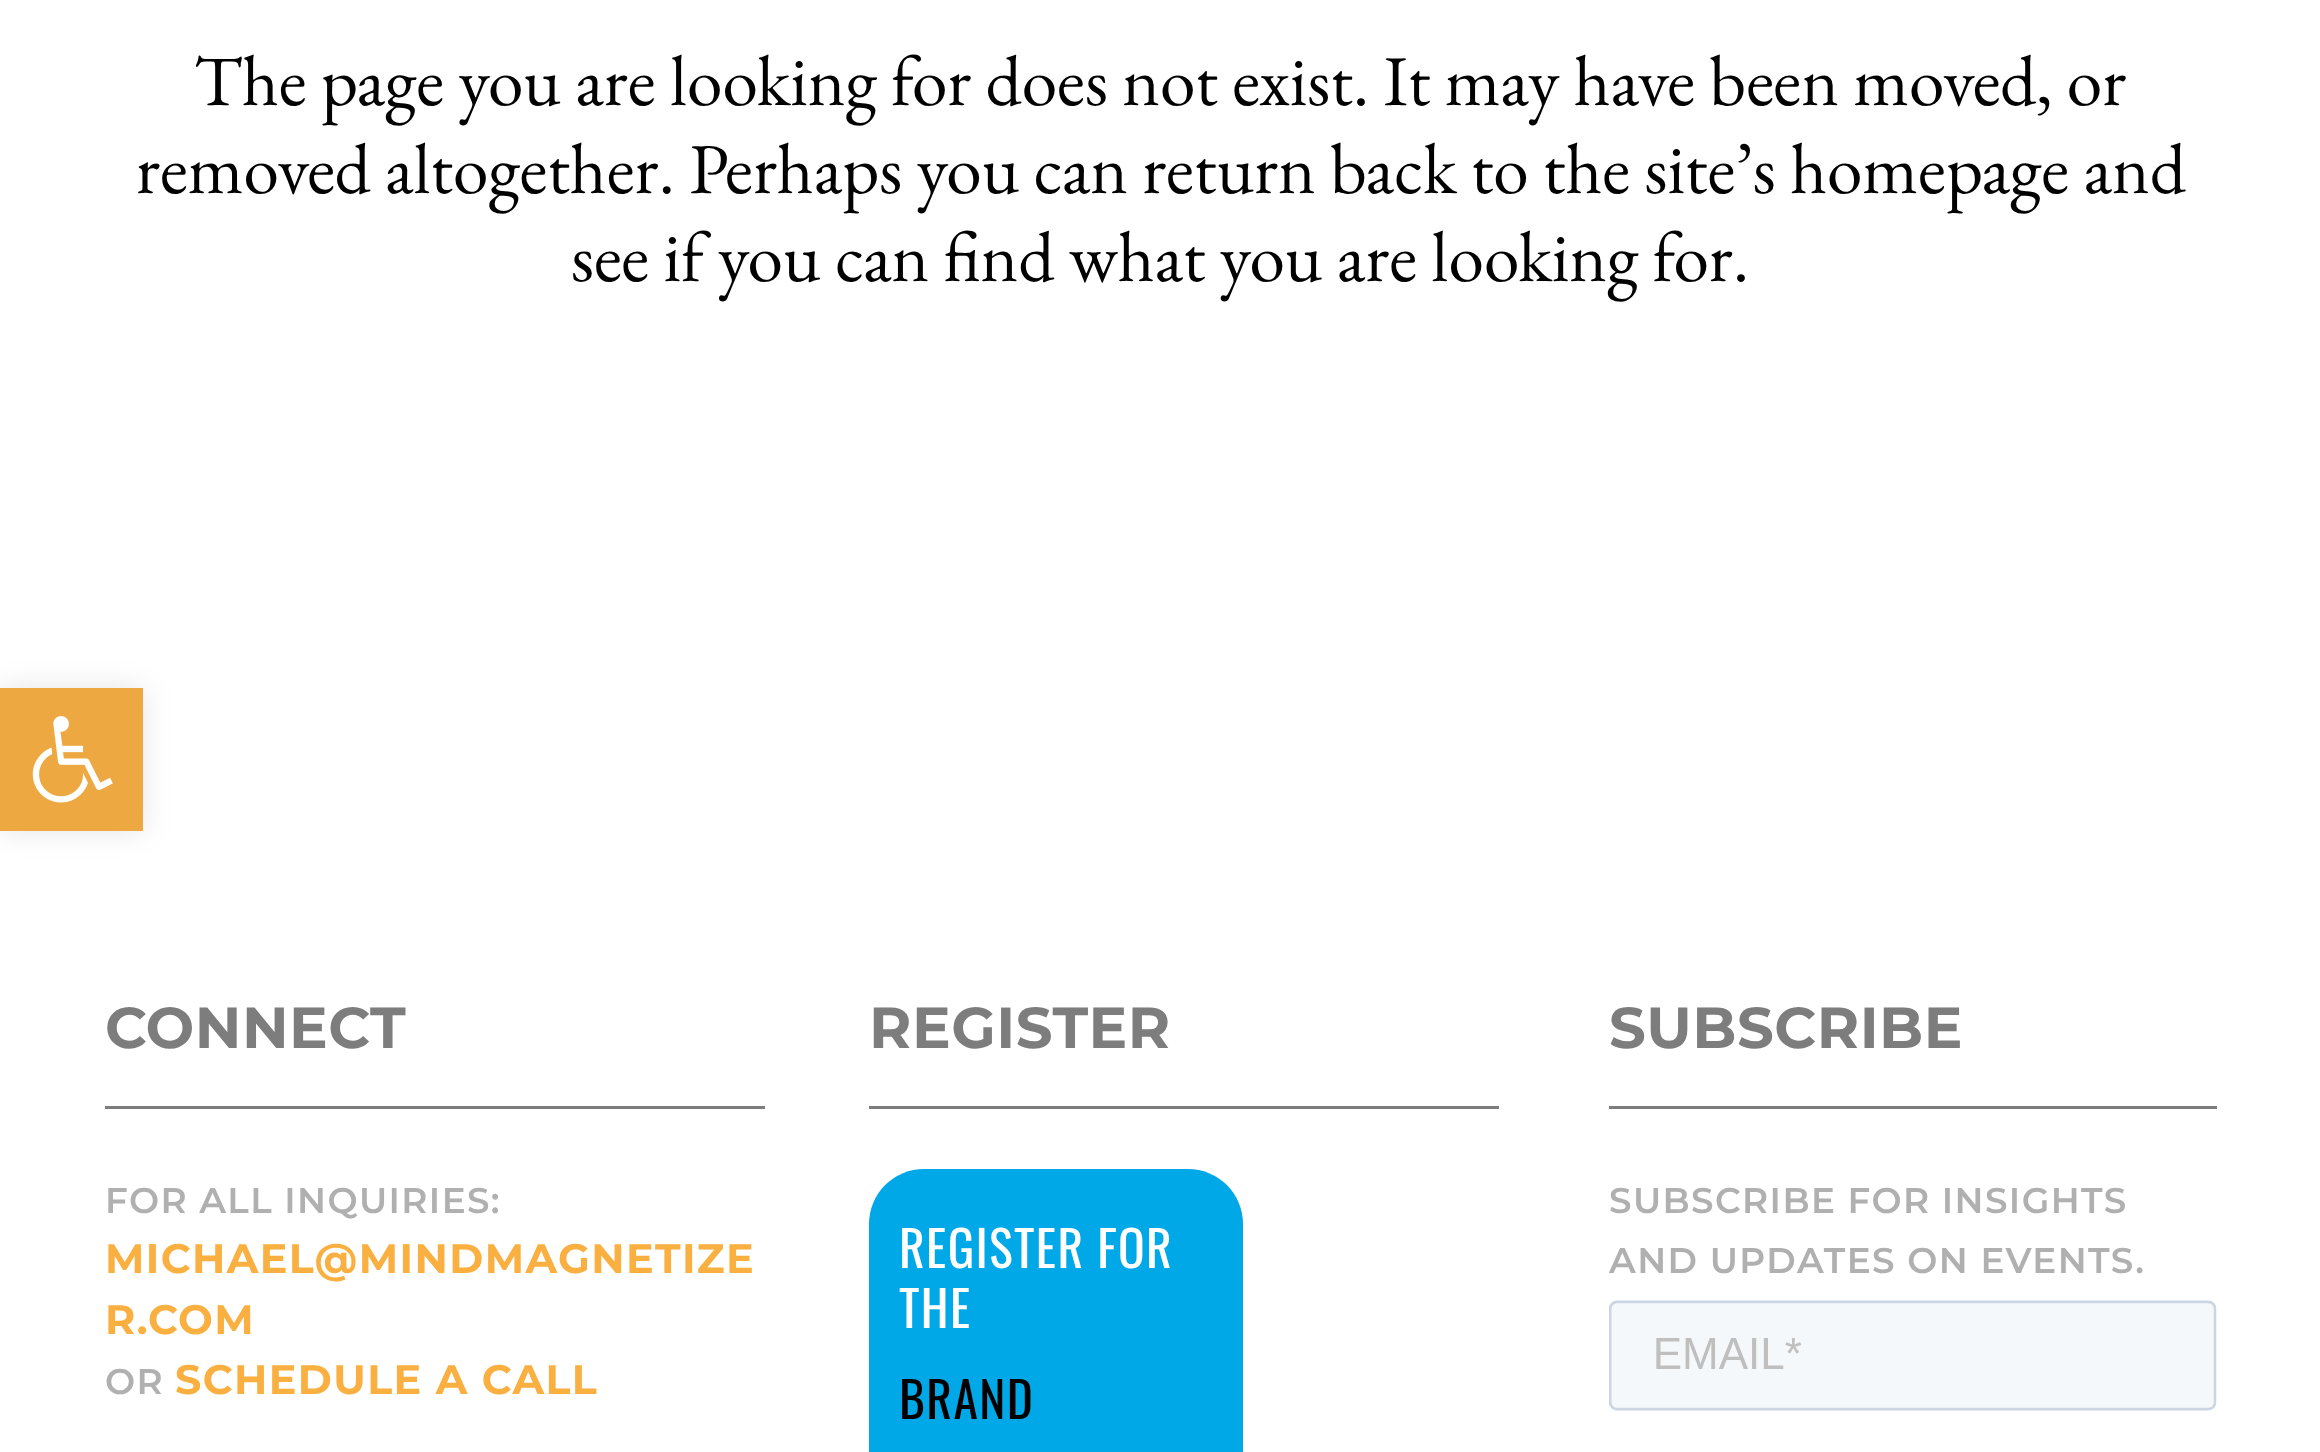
async function draw(canvas) {
  canvas.width = 2320
  canvas.height = 1452
  const ctx = canvas.getContext('2d')
  ctx.miterLimit = 4
  ctx.fontKerning = 'normal'
  async function loadImage(src) {
    const img = new Image()
    img.src = src
    await img.decode()
    return img
  }

  ctx.fillStyle = '#fff'
  ctx.fillRect(0, 0, 2320, 1452)
  ctx.fillStyle = '#0000001a'
  ctx.filter = 'blur(14px)'
  ctx.beginPath()
  ctx.rect(0, 688, 143, 143)
  ctx.fill()
  ctx.filter = 'none'
  ctx.fillStyle = '#eda841'
  ctx.fillRect(0, 688, 143, 143)
  ctx.drawImage(await loadImage('image0.png'), 32, 716, 81, 87)
  ctx.font = '71.5px EB Garamond'
  ctx.fillStyle = '#000'
  ctx.fillText('The page you are looking for does not exist. It may have been moved, or', 194, 105)
  ctx.fillText('removed altogether. Perhaps you can return back to the site’s homepage and', 136, 193)
  ctx.fillText('see if you can find what you are looking for.', 571, 281)
  ctx.fillStyle = '#7d7d7d'
  ctx.fillRect(105, 1106, 660, 3)
  ctx.letterSpacing = '0.5px'
  ctx.font = 'bold 57.75px Montserrat'
  ctx.fillText('CONNECT', 105, 1048)
  ctx.letterSpacing = '1.4px'
  ctx.font = '600 35.75px Montserrat'
  ctx.fillStyle = '#b0b0b0'
  ctx.fillText('FOR ALL INQUIRIES:', 105, 1213)
  ctx.font = 'bold 41.25px Montserrat'
  ctx.fillStyle = '#faaf41'
  ctx.fillText('MICHAEL@MINDMAGNETIZE', 105, 1273)
  ctx.fillText('R.COM', 105, 1334)
  ctx.font = '600 35.75px Montserrat'
  ctx.fillStyle = '#b0b0b0'
  ctx.fillText('OR', 105, 1394)
  ctx.font = 'bold 41.25px Montserrat'
  ctx.fillStyle = '#faaf41'
  ctx.fillText('SCHEDULE A CALL', 175, 1394)
  ctx.fillStyle = '#7d7d7d'
  ctx.fillRect(869, 1106, 630, 3)
  ctx.letterSpacing = '0.5px'
  ctx.font = 'bold 57.75px Montserrat'
  ctx.fillText('REGISTER', 869, 1048)
  ctx.fillStyle = '#00a8e8'
  ctx.beginPath()
  ctx.roundRect(869, 1169, 374, 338, 55)
  ctx.fill()
  ctx.letterSpacing = '1.4px'
  ctx.font = '49.5px Oswald'
  ctx.fillStyle = '#fff'
  ctx.fillText('REGISTER FOR', 899, 1268)
  ctx.fillText('THE', 899, 1328)
  ctx.fillStyle = '#000'
  ctx.fillText('BRAND', 899, 1419)
  ctx.fillStyle = '#7d7d7d'
  ctx.fillRect(1609, 1106, 608, 3)
  ctx.letterSpacing = '0.5px'
  ctx.font = 'bold 57.75px Montserrat'
  ctx.fillText('SUBSCRIBE', 1609, 1048)
  ctx.letterSpacing = '1.4px'
  ctx.font = '600 35.75px Montserrat'
  ctx.fillStyle = '#b0b0b0'
  ctx.fillText('SUBSCRIBE FOR INSIGHTS', 1609, 1213)
  ctx.fillText('AND UPDATES ON EVENTS.', 1609, 1273)
  ctx.drawImage(await loadImage('image1.png'), 1609, 1300, 608, 111)
}

draw(document.querySelector('canvas'))
